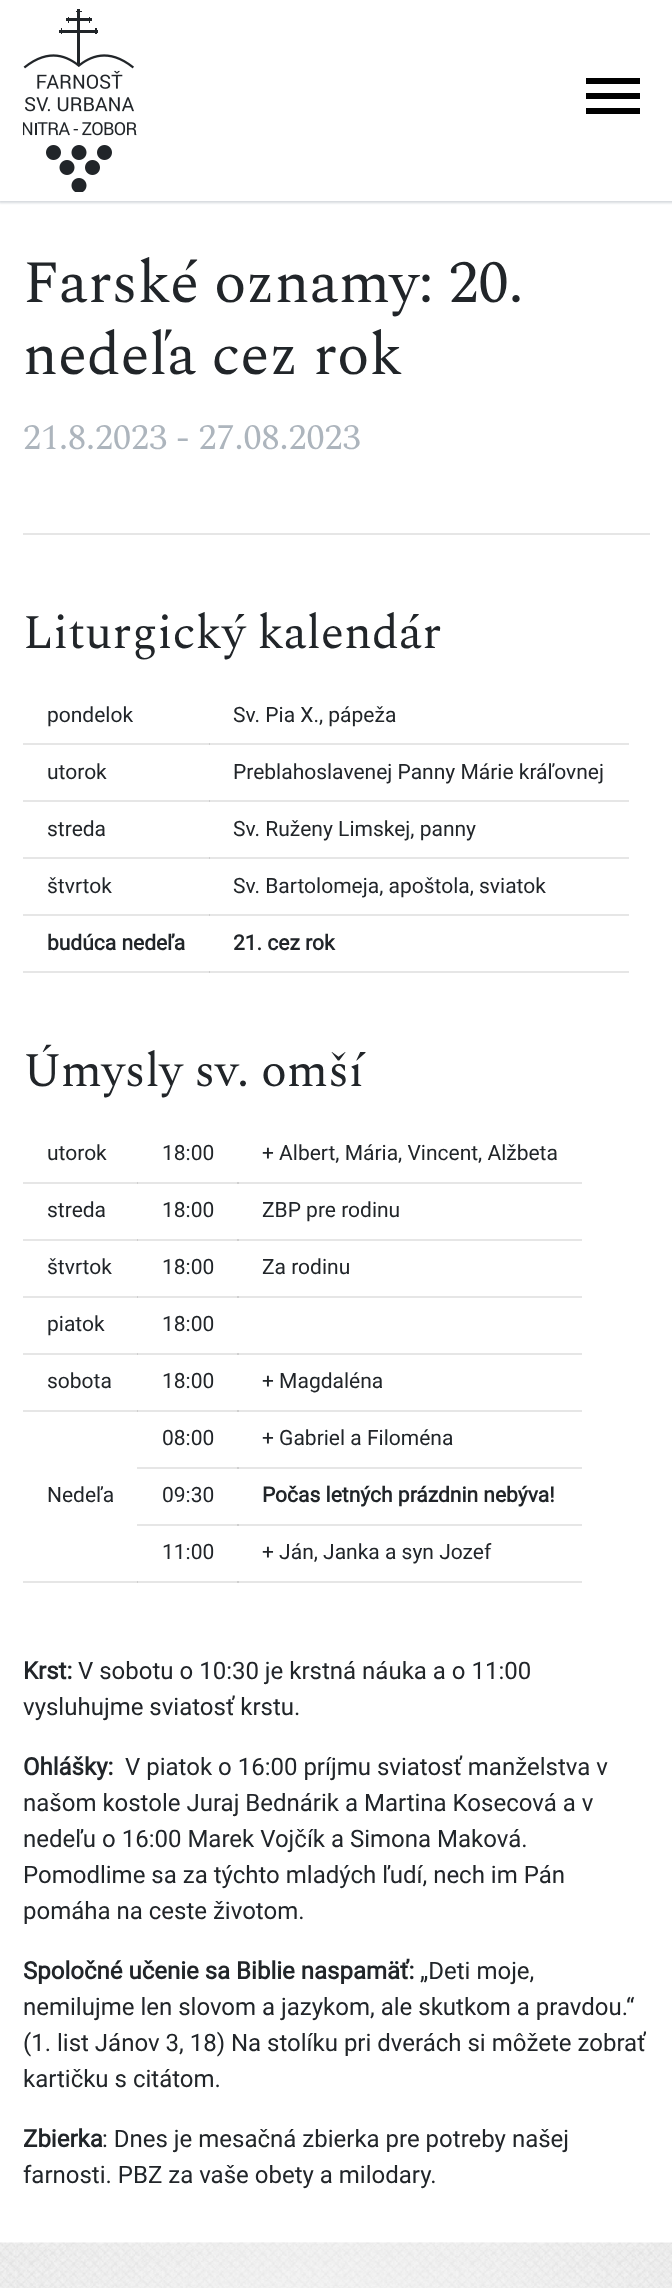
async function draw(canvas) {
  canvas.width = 672
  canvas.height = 2288
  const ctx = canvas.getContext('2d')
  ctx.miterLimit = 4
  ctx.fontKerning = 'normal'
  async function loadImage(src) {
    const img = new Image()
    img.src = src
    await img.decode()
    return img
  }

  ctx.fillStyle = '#fff'
  ctx.fillRect(0, 0, 672, 2288)
  ctx.fillStyle = '#e6e6e6'
  ctx.fillRect(23, 1182, 559, 2)
  ctx.fillStyle = '#cfcfcf'
  ctx.fillRect(137, 1182, 1, 2)
  ctx.fillStyle = '#e6e6e6'
  ctx.fillRect(23, 1239, 559, 2)
  ctx.fillStyle = '#cfcfcf'
  ctx.fillRect(137, 1239, 1, 2)
  ctx.fillStyle = '#e6e6e6'
  ctx.fillRect(23, 1296, 559, 2)
  ctx.fillStyle = '#cfcfcf'
  ctx.fillRect(137, 1296, 1, 2)
  ctx.fillStyle = '#e6e6e6'
  ctx.fillRect(23, 1353, 559, 2)
  ctx.fillStyle = '#cfcfcf'
  ctx.fillRect(137, 1353, 1, 2)
  ctx.fillStyle = '#e6e6e6'
  ctx.fillRect(23, 1410, 559, 2)
  ctx.fillStyle = '#cfcfcf'
  ctx.fillRect(137, 1410, 1, 2)
  ctx.fillStyle = '#e6e6e6'
  ctx.fillRect(23, 1581, 559, 2)
  ctx.fillRect(137, 1467, 445, 2)
  ctx.fillRect(137, 1524, 445, 2)
  ctx.fillStyle = '#cfcfcf'
  ctx.fillRect(137, 1581, 1, 2)
  ctx.fillStyle = '#e6e6e6'
  ctx.fillRect(23, 743, 606, 2)
  ctx.fillRect(23, 800, 606, 2)
  ctx.fillRect(23, 857, 606, 2)
  ctx.fillRect(23, 914, 606, 2)
  ctx.fillRect(23, 971, 606, 2)
  ctx.save()
  ctx.beginPath()
  ctx.rect(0, 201, 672, 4)
  ctx.clip()
  ctx.fillStyle = '#adb5bd80'
  ctx.filter = 'blur(1px)'
  ctx.beginPath()
  ctx.rect(-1, -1, 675, 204)
  ctx.fill()
  ctx.filter = 'none'
  ctx.restore()
  ctx.drawImage(await loadImage('image0.png'), 23, 9, 114, 183)
  ctx.fillStyle = '#000'
  ctx.beginPath()
  ctx.moveTo(586, 78)
  ctx.lineTo(640, 78)
  ctx.lineTo(640, 84)
  ctx.lineTo(586, 84)
  ctx.closePath()
  ctx.moveTo(586, 99)
  ctx.lineTo(586, 93)
  ctx.lineTo(640, 93)
  ctx.lineTo(640, 99)
  ctx.closePath()
  ctx.moveTo(586, 114)
  ctx.lineTo(586, 108)
  ctx.lineTo(640, 108)
  ctx.lineTo(640, 114)
  ctx.closePath()
  ctx.fill()
  ctx.font = '60px Spectral'
  ctx.fillStyle = '#212529'
  ctx.fillText('Farské oznamy: 20.', 23, 302)
  ctx.fillText('nedeľa cez rok', 23, 374)
  ctx.font = '36px Spectral'
  ctx.fillStyle = '#adb5bd'
  ctx.fillText('21.8.2023 - 27.08.2023', 23, 449)
  ctx.fillStyle = '#e6e6e6'
  ctx.fillRect(23, 533, 627, 2)
  ctx.font = '48px Spectral'
  ctx.fillStyle = '#212529'
  ctx.fillText('Liturgický kalendár', 23, 648)
  ctx.font = '21px Roboto'
  ctx.fillText('pondelok', 47, 722)
  ctx.fillStyle = '#cfcfcf'
  ctx.fillRect(209, 743, 1, 2)
  ctx.fillStyle = '#212529'
  ctx.fillText('Sv. Pia X., pápeža', 233, 722)
  ctx.fillText('utorok', 47, 779)
  ctx.fillStyle = '#cfcfcf'
  ctx.fillRect(209, 800, 1, 2)
  ctx.fillStyle = '#212529'
  ctx.fillText('Preblahoslavenej Panny Márie kráľovnej', 233, 779)
  ctx.fillText('streda', 47, 836)
  ctx.fillStyle = '#cfcfcf'
  ctx.fillRect(209, 857, 1, 2)
  ctx.fillStyle = '#212529'
  ctx.fillText('Sv. Ruženy Limskej, panny', 233, 836)
  ctx.fillText('štvrtok', 47, 893)
  ctx.fillStyle = '#cfcfcf'
  ctx.fillRect(209, 914, 1, 2)
  ctx.fillStyle = '#212529'
  ctx.fillText('Sv. Bartolomeja, apoštola, sviatok', 233, 893)
  ctx.font = 'bold 21px Roboto'
  ctx.fillText('budúca nedeľa', 47, 950)
  ctx.fillStyle = '#cfcfcf'
  ctx.fillRect(209, 971, 1, 2)
  ctx.fillStyle = '#212529'
  ctx.fillText('21. cez rok', 233, 950)
  ctx.font = '48px Spectral'
  ctx.fillText('Úmysly sv. omší', 23, 1086)
  ctx.font = '21px Roboto'
  ctx.fillText('utorok', 47, 1160)
  ctx.fillText('18:00', 162, 1160)
  ctx.fillStyle = '#cfcfcf'
  ctx.fillRect(237, 1182, 2, 2)
  ctx.fillStyle = '#212529'
  ctx.fillText('+ Albert, Mária, Vincent, Alžbeta', 262, 1160)
  ctx.fillText('streda', 47, 1217)
  ctx.fillText('18:00', 162, 1217)
  ctx.fillStyle = '#cfcfcf'
  ctx.fillRect(237, 1239, 2, 2)
  ctx.fillStyle = '#212529'
  ctx.fillText('ZBP pre rodinu', 262, 1217)
  ctx.fillText('štvrtok', 47, 1274)
  ctx.fillText('18:00', 162, 1274)
  ctx.fillStyle = '#cfcfcf'
  ctx.fillRect(237, 1296, 2, 2)
  ctx.fillStyle = '#212529'
  ctx.fillText('Za rodinu', 262, 1274)
  ctx.fillText('piatok', 47, 1331)
  ctx.fillText('18:00', 162, 1331)
  ctx.fillStyle = '#cfcfcf'
  ctx.fillRect(237, 1353, 2, 2)
  ctx.fillStyle = '#212529'
  ctx.fillText('sobota', 47, 1388)
  ctx.fillText('18:00', 162, 1388)
  ctx.fillStyle = '#cfcfcf'
  ctx.fillRect(237, 1410, 2, 2)
  ctx.fillStyle = '#212529'
  ctx.fillText('+ Magdaléna', 262, 1388)
  ctx.fillText('08:00', 162, 1445)
  ctx.fillStyle = '#cfcfcf'
  ctx.fillRect(237, 1467, 2, 2)
  ctx.fillStyle = '#212529'
  ctx.fillText('+ Gabriel a Filoména', 262, 1445)
  ctx.fillText('Nedeľa', 47, 1502)
  ctx.fillText('09:30', 162, 1502)
  ctx.fillStyle = '#cfcfcf'
  ctx.fillRect(237, 1524, 2, 2)
  ctx.font = 'bold 21px Roboto'
  ctx.fillStyle = '#212529'
  ctx.fillText('Počas letných prázdnin nebýva!', 262, 1502)
  ctx.font = '21px Roboto'
  ctx.fillText('11:00', 162, 1559)
  ctx.fillStyle = '#cfcfcf'
  ctx.fillRect(237, 1581, 2, 2)
  ctx.fillStyle = '#212529'
  ctx.fillText('+ Ján, Janka a syn Jozef', 262, 1559)
  ctx.font = 'bold 24px Roboto'
  ctx.fillText('Krst:', 23, 1679)
  ctx.font = '24px Roboto'
  ctx.fillText('V sobotu o 10:30 je krstná náuka a o 11:00', 78, 1679)
  ctx.fillText('vysluhujme sviatosť krstu.', 23, 1715)
  ctx.font = 'bold 24px Roboto'
  ctx.fillText('Ohlášky:', 23, 1775)
  ctx.font = '24px Roboto'
  ctx.fillText('V piatok o 16:00 príjmu sviatosť manželstva v', 125, 1775)
  ctx.fillText('našom kostole Juraj Bednárik a Martina Kosecová a v', 23, 1811)
  ctx.fillText('nedeľu o 16:00 Marek Vojčík a Simona Maková.', 23, 1847)
  ctx.fillText('Pomodlime sa za týchto mladých ľudí, nech im Pán', 23, 1883)
  ctx.fillText('pomáha na ceste životom.', 23, 1919)
  ctx.font = 'bold 24px Roboto'
  ctx.fillText('Spoločné učenie sa Biblie naspamäť:', 23, 1979)
  ctx.font = '24px Roboto'
  ctx.fillText('„Deti moje,', 420, 1979)
  ctx.fillText('nemilujme len slovom a jazykom, ale skutkom a pravdou.“', 23, 2015)
  ctx.fillText('(1. list Jánov 3, 18) Na stolíku pri dverách si môžete zobrať', 23, 2051)
  ctx.fillText('kartičku s citátom.', 23, 2087)
  ctx.font = 'bold 24px Roboto'
  ctx.fillText('Zbierka', 23, 2147)
  ctx.font = '24px Roboto'
  ctx.fillText(': Dnes je mesačná zbierka pre potreby našej', 102, 2147)
  ctx.fillText('farnosti. PBZ za vaše obety a milodary.', 23, 2183)
  ctx.drawImage(await loadImage('image1.png'), 0, 2242, 672, 46)
}

draw(document.querySelector('canvas'))
